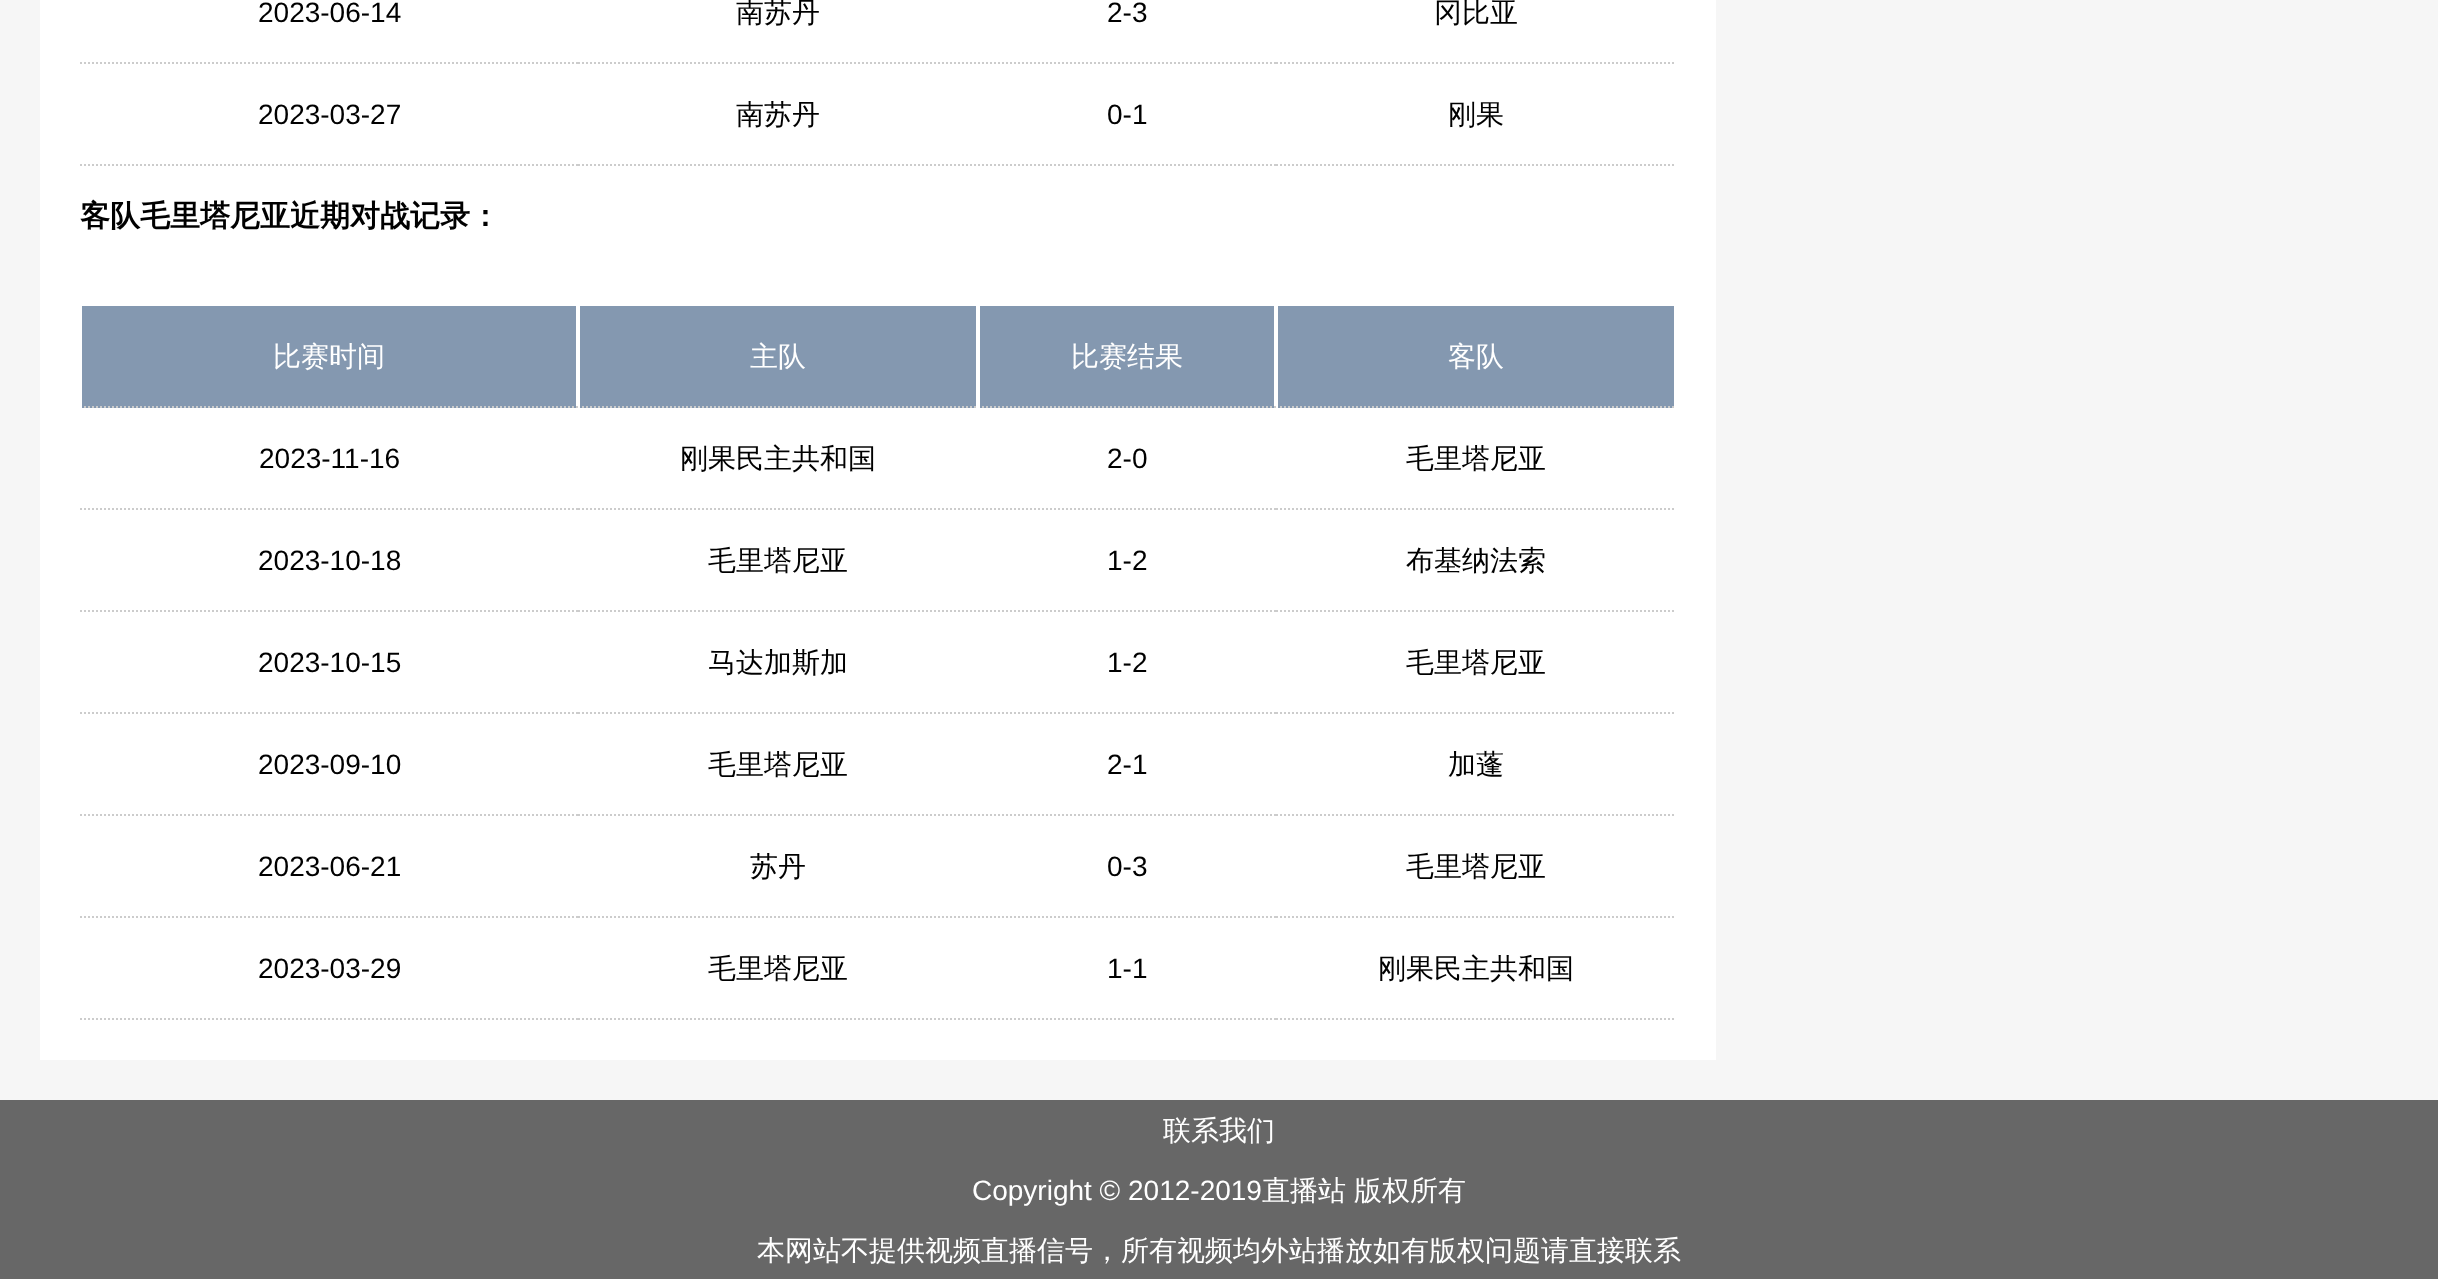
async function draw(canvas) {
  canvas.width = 2438
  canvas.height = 1279
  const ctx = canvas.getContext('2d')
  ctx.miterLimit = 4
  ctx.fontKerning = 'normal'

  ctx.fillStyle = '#f6f6f6'
  ctx.fillRect(0, 0, 2438, 1279)
  ctx.fillStyle = '#fff'
  ctx.fillRect(40, 0, 1676, 1060)
  ctx.beginPath()
  ctx.moveTo(80, 63)
  ctx.lineTo(578, 63)
  ctx.strokeStyle = '#ccc'
  ctx.lineWidth = 2
  ctx.setLineDash([2, 2])
  ctx.stroke()
  ctx.font = '28px Liberation Sans'
  ctx.fillStyle = '#000'
  ctx.fillText('2023-06-14', 258, 22)
  ctx.beginPath()
  ctx.moveTo(578, 63)
  ctx.lineTo(978, 63)
  ctx.stroke()
  ctx.font = '500 28px WenQuanYi Zen Hei'
  ctx.fillText('南苏丹', 736, 22)
  ctx.beginPath()
  ctx.moveTo(978, 63)
  ctx.lineTo(1276, 63)
  ctx.stroke()
  ctx.font = '28px Liberation Sans'
  ctx.fillText('2-3', 1107, 22)
  ctx.beginPath()
  ctx.moveTo(1276, 63)
  ctx.lineTo(1676, 63)
  ctx.stroke()
  ctx.font = '500 28px WenQuanYi Zen Hei'
  ctx.fillText('冈比亚', 1434, 22)
  ctx.beginPath()
  ctx.moveTo(80, 165)
  ctx.lineTo(578, 165)
  ctx.stroke()
  ctx.font = '28px Liberation Sans'
  ctx.fillText('2023-03-27', 258, 124)
  ctx.beginPath()
  ctx.moveTo(578, 165)
  ctx.lineTo(978, 165)
  ctx.stroke()
  ctx.font = '500 28px WenQuanYi Zen Hei'
  ctx.fillText('南苏丹', 736, 124)
  ctx.beginPath()
  ctx.moveTo(978, 165)
  ctx.lineTo(1276, 165)
  ctx.stroke()
  ctx.font = '28px Liberation Sans'
  ctx.fillText('0-1', 1107, 124)
  ctx.beginPath()
  ctx.moveTo(1276, 165)
  ctx.lineTo(1676, 165)
  ctx.stroke()
  ctx.font = '500 28px WenQuanYi Zen Hei'
  ctx.fillText('刚果', 1448, 124)
  ctx.font = 'bold 30px WenQuanYi Zen Hei'
  ctx.fillText('客队毛里塔尼亚近期对战记录：', 80, 226)
  ctx.fillStyle = '#8498b0'
  ctx.fillRect(82, 306, 494, 102)
  ctx.beginPath()
  ctx.moveTo(80, 407)
  ctx.lineTo(578, 407)
  ctx.stroke()
  ctx.fillStyle = '#fff'
  ctx.fillRect(80, 406, 2, 2)
  ctx.font = '500 28px WenQuanYi Zen Hei'
  ctx.fillText('比赛时间', 273, 366)
  ctx.fillStyle = '#8498b0'
  ctx.fillRect(580, 306, 396, 102)
  ctx.beginPath()
  ctx.moveTo(578, 407)
  ctx.lineTo(978, 407)
  ctx.stroke()
  ctx.fillStyle = '#fff'
  ctx.fillRect(578, 406, 2, 2)
  ctx.fillText('主队', 750, 366)
  ctx.fillStyle = '#8498b0'
  ctx.fillRect(980, 306, 294, 102)
  ctx.beginPath()
  ctx.moveTo(978, 407)
  ctx.lineTo(1276, 407)
  ctx.stroke()
  ctx.fillStyle = '#fff'
  ctx.fillRect(978, 406, 2, 2)
  ctx.fillText('比赛结果', 1071, 366)
  ctx.fillStyle = '#8498b0'
  ctx.fillRect(1278, 306, 396, 102)
  ctx.beginPath()
  ctx.moveTo(1276, 407)
  ctx.lineTo(1676, 407)
  ctx.stroke()
  ctx.fillStyle = '#fff'
  ctx.fillRect(1276, 406, 2, 2)
  ctx.fillText('客队', 1448, 366)
  ctx.beginPath()
  ctx.moveTo(80, 509)
  ctx.lineTo(578, 509)
  ctx.stroke()
  ctx.font = '28px Liberation Sans'
  ctx.fillStyle = '#000'
  ctx.fillText('2023-11-16', 259, 468)
  ctx.beginPath()
  ctx.moveTo(578, 509)
  ctx.lineTo(978, 509)
  ctx.stroke()
  ctx.font = '500 28px WenQuanYi Zen Hei'
  ctx.fillText('刚果民主共和国', 680, 468)
  ctx.beginPath()
  ctx.moveTo(978, 509)
  ctx.lineTo(1276, 509)
  ctx.stroke()
  ctx.font = '28px Liberation Sans'
  ctx.fillText('2-0', 1107, 468)
  ctx.beginPath()
  ctx.moveTo(1276, 509)
  ctx.lineTo(1676, 509)
  ctx.stroke()
  ctx.font = '500 28px WenQuanYi Zen Hei'
  ctx.fillText('毛里塔尼亚', 1406, 468)
  ctx.beginPath()
  ctx.moveTo(80, 611)
  ctx.lineTo(578, 611)
  ctx.stroke()
  ctx.font = '28px Liberation Sans'
  ctx.fillText('2023-10-18', 258, 570)
  ctx.beginPath()
  ctx.moveTo(578, 611)
  ctx.lineTo(978, 611)
  ctx.stroke()
  ctx.font = '500 28px WenQuanYi Zen Hei'
  ctx.fillText('毛里塔尼亚', 708, 570)
  ctx.beginPath()
  ctx.moveTo(978, 611)
  ctx.lineTo(1276, 611)
  ctx.stroke()
  ctx.font = '28px Liberation Sans'
  ctx.fillText('1-2', 1107, 570)
  ctx.beginPath()
  ctx.moveTo(1276, 611)
  ctx.lineTo(1676, 611)
  ctx.stroke()
  ctx.font = '500 28px WenQuanYi Zen Hei'
  ctx.fillText('布基纳法索', 1406, 570)
  ctx.beginPath()
  ctx.moveTo(80, 713)
  ctx.lineTo(578, 713)
  ctx.stroke()
  ctx.font = '28px Liberation Sans'
  ctx.fillText('2023-10-15', 258, 672)
  ctx.beginPath()
  ctx.moveTo(578, 713)
  ctx.lineTo(978, 713)
  ctx.stroke()
  ctx.font = '500 28px WenQuanYi Zen Hei'
  ctx.fillText('马达加斯加', 708, 672)
  ctx.beginPath()
  ctx.moveTo(978, 713)
  ctx.lineTo(1276, 713)
  ctx.stroke()
  ctx.font = '28px Liberation Sans'
  ctx.fillText('1-2', 1107, 672)
  ctx.beginPath()
  ctx.moveTo(1276, 713)
  ctx.lineTo(1676, 713)
  ctx.stroke()
  ctx.font = '500 28px WenQuanYi Zen Hei'
  ctx.fillText('毛里塔尼亚', 1406, 672)
  ctx.beginPath()
  ctx.moveTo(80, 815)
  ctx.lineTo(578, 815)
  ctx.stroke()
  ctx.font = '28px Liberation Sans'
  ctx.fillText('2023-09-10', 258, 774)
  ctx.beginPath()
  ctx.moveTo(578, 815)
  ctx.lineTo(978, 815)
  ctx.stroke()
  ctx.font = '500 28px WenQuanYi Zen Hei'
  ctx.fillText('毛里塔尼亚', 708, 774)
  ctx.beginPath()
  ctx.moveTo(978, 815)
  ctx.lineTo(1276, 815)
  ctx.stroke()
  ctx.font = '28px Liberation Sans'
  ctx.fillText('2-1', 1107, 774)
  ctx.beginPath()
  ctx.moveTo(1276, 815)
  ctx.lineTo(1676, 815)
  ctx.stroke()
  ctx.font = '500 28px WenQuanYi Zen Hei'
  ctx.fillText('加蓬', 1448, 774)
  ctx.beginPath()
  ctx.moveTo(80, 917)
  ctx.lineTo(578, 917)
  ctx.stroke()
  ctx.font = '28px Liberation Sans'
  ctx.fillText('2023-06-21', 258, 876)
  ctx.beginPath()
  ctx.moveTo(578, 917)
  ctx.lineTo(978, 917)
  ctx.stroke()
  ctx.font = '500 28px WenQuanYi Zen Hei'
  ctx.fillText('苏丹', 750, 876)
  ctx.beginPath()
  ctx.moveTo(978, 917)
  ctx.lineTo(1276, 917)
  ctx.stroke()
  ctx.font = '28px Liberation Sans'
  ctx.fillText('0-3', 1107, 876)
  ctx.beginPath()
  ctx.moveTo(1276, 917)
  ctx.lineTo(1676, 917)
  ctx.stroke()
  ctx.font = '500 28px WenQuanYi Zen Hei'
  ctx.fillText('毛里塔尼亚', 1406, 876)
  ctx.beginPath()
  ctx.moveTo(80, 1019)
  ctx.lineTo(578, 1019)
  ctx.stroke()
  ctx.font = '28px Liberation Sans'
  ctx.fillText('2023-03-29', 258, 978)
  ctx.beginPath()
  ctx.moveTo(578, 1019)
  ctx.lineTo(978, 1019)
  ctx.stroke()
  ctx.font = '500 28px WenQuanYi Zen Hei'
  ctx.fillText('毛里塔尼亚', 708, 978)
  ctx.beginPath()
  ctx.moveTo(978, 1019)
  ctx.lineTo(1276, 1019)
  ctx.stroke()
  ctx.font = '28px Liberation Sans'
  ctx.fillText('1-1', 1107, 978)
  ctx.beginPath()
  ctx.moveTo(1276, 1019)
  ctx.lineTo(1676, 1019)
  ctx.stroke()
  ctx.font = '500 28px WenQuanYi Zen Hei'
  ctx.fillText('刚果民主共和国', 1378, 978)
  ctx.fillStyle = '#676767'
  ctx.fillRect(0, 1100, 2438, 179)
  ctx.fillStyle = '#fff'
  ctx.fillText('联系我们', 1163, 1140)
  ctx.font = '28px Liberation Sans'
  ctx.fillText('Copyright © 2012-2019', 972, 1200)
  ctx.font = '500 28px WenQuanYi Zen Hei'
  ctx.fillText('直播站', 1262, 1200)
  ctx.fillText('版权所有', 1354, 1200)
  ctx.fillText('本网站不提供视频直播信号，所有视频均外站播放如有版权问题请直接联系', 757, 1260)
}

draw(document.querySelector('canvas'))
